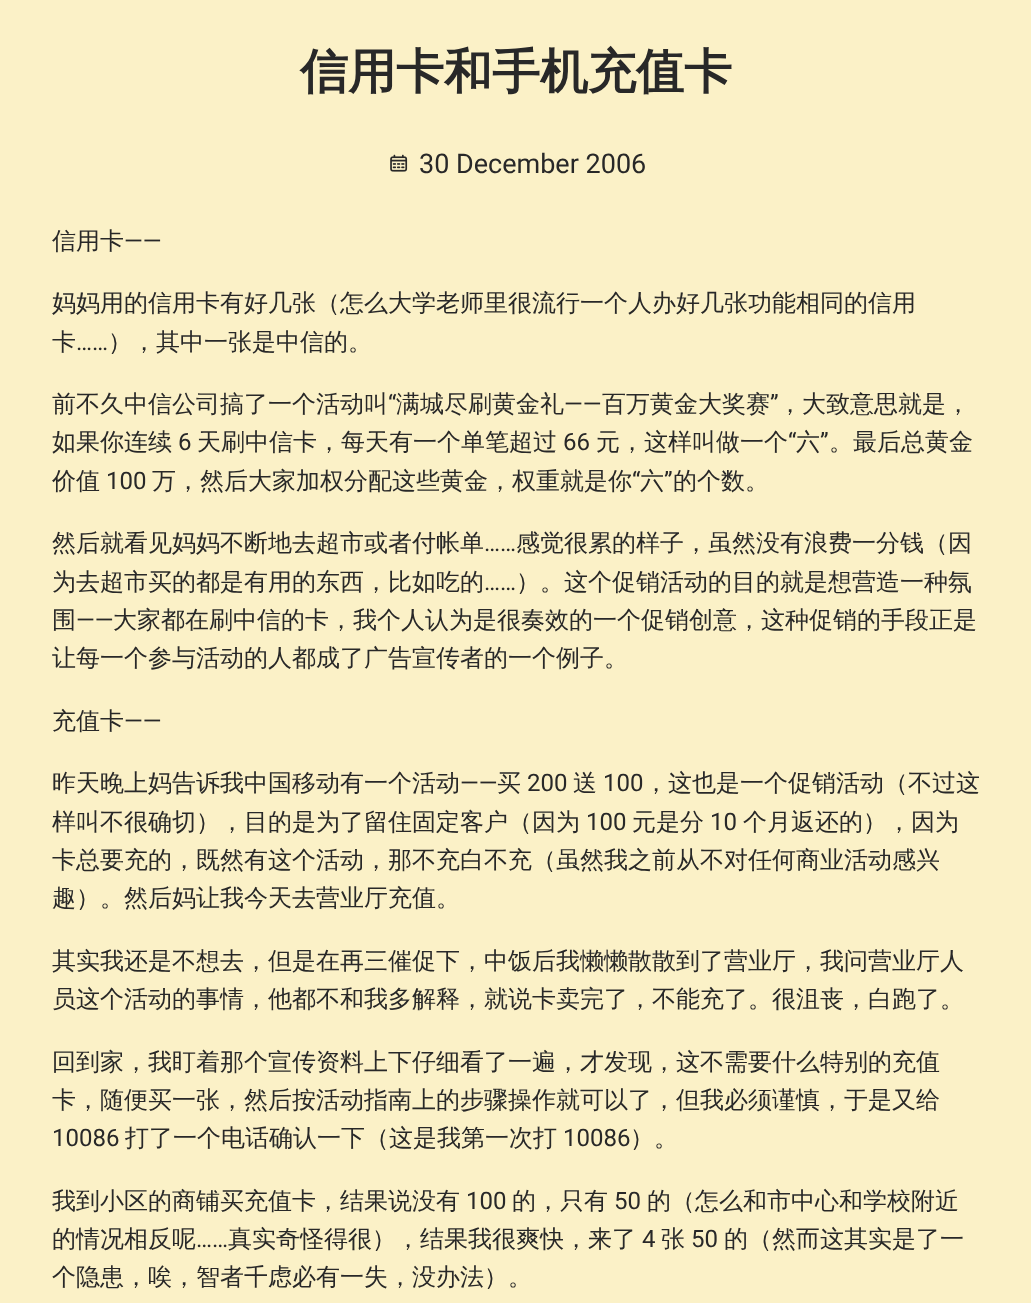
async function draw(canvas) {
  canvas.width = 1031
  canvas.height = 1303
  const ctx = canvas.getContext('2d')
  ctx.miterLimit = 4
  ctx.fontKerning = 'normal'
  async function loadImage(src) {
    const img = new Image()
    img.src = src
    await img.decode()
    return img
  }

  ctx.fillStyle = '#fbf1c7'
  ctx.fillRect(0, 0, 1031, 1303)
  ctx.font = 'bold 48px WenQuanYi Zen Hei'
  ctx.fillStyle = '#282828'
  ctx.fillText('信用卡和手机充值卡', 300, 88)
  ctx.drawImage(await loadImage('image0.png'), 390, 154, 18, 18)
  ctx.font = '27px Roboto'
  ctx.fillText('30 December 2006', 419, 173)
  ctx.font = '500 24px WenQuanYi Zen Hei'
  ctx.fillText('信用卡', 52, 249)
  ctx.font = '24px Roboto'
  ctx.fillText('——', 124, 249)
  ctx.font = '500 24px WenQuanYi Zen Hei'
  ctx.fillText('妈妈用的信用卡有好几张（怎么大学老师里很流行一个人办好几张功能相同的信用', 52, 311)
  ctx.fillText('卡', 52, 350)
  ctx.font = '24px Roboto'
  ctx.fillText('……', 76, 350)
  ctx.font = '500 24px WenQuanYi Zen Hei'
  ctx.fillText('），其中一张是中信的。', 108, 350)
  ctx.fillText('前不久中信公司搞了一个活动叫', 52, 412)
  ctx.font = '24px Roboto'
  ctx.fillText('“', 388, 412)
  ctx.font = '500 24px WenQuanYi Zen Hei'
  ctx.fillText('满城尽刷黄金礼', 396, 412)
  ctx.fillText('百万黄金大奖赛', 602, 412)
  ctx.font = '24px Roboto'
  ctx.fillText('”', 770, 412)
  ctx.font = '500 24px WenQuanYi Zen Hei'
  ctx.fillText('，大致意思就是，', 778, 412)
  ctx.font = '24px Roboto'
  ctx.fillText('——', 564, 412)
  ctx.font = '500 24px WenQuanYi Zen Hei'
  ctx.fillText('如果你连续', 52, 450)
  ctx.font = '24px Roboto'
  ctx.fillText('6', 178, 450)
  ctx.font = '500 24px WenQuanYi Zen Hei'
  ctx.fillText('天刷中信卡，每天有一个单笔超过', 197, 450)
  ctx.font = '24px Roboto'
  ctx.fillText('66', 563, 450)
  ctx.font = '500 24px WenQuanYi Zen Hei'
  ctx.fillText('元，这样叫做一个', 596, 450)
  ctx.font = '24px Roboto'
  ctx.fillText('“', 788, 450)
  ctx.font = '500 24px WenQuanYi Zen Hei'
  ctx.fillText('六', 796, 450)
  ctx.font = '24px Roboto'
  ctx.fillText('”', 820, 450)
  ctx.font = '500 24px WenQuanYi Zen Hei'
  ctx.fillText('。最后总黄金', 829, 450)
  ctx.fillText('价值', 52, 489)
  ctx.font = '24px Roboto'
  ctx.fillText('100', 106, 489)
  ctx.font = '500 24px WenQuanYi Zen Hei'
  ctx.fillText('万，然后大家加权分配这些黄金，权重就是你', 152, 489)
  ctx.font = '24px Roboto'
  ctx.fillText('“', 632, 489)
  ctx.font = '500 24px WenQuanYi Zen Hei'
  ctx.fillText('六', 640, 489)
  ctx.font = '24px Roboto'
  ctx.fillText('”', 664, 489)
  ctx.font = '500 24px WenQuanYi Zen Hei'
  ctx.fillText('的个数。', 673, 489)
  ctx.fillText('然后就看见妈妈不断地去超市或者付帐单', 52, 551)
  ctx.font = '24px Roboto'
  ctx.fillText('……', 484, 551)
  ctx.font = '500 24px WenQuanYi Zen Hei'
  ctx.fillText('感觉很累的样子，虽然没有浪费一分钱（因', 516, 551)
  ctx.fillText('为去超市买的都是有用的东西，比如吃的', 52, 590)
  ctx.font = '24px Roboto'
  ctx.fillText('……', 484, 590)
  ctx.font = '500 24px WenQuanYi Zen Hei'
  ctx.fillText('）。这个促销活动的目的就是想营造一种氛', 516, 590)
  ctx.fillText('围', 52, 628)
  ctx.font = '24px Roboto'
  ctx.fillText('——', 76, 628)
  ctx.font = '500 24px WenQuanYi Zen Hei'
  ctx.fillText('大家都在刷中信的卡，我个人认为是很奏效的一个促销创意，这种促销的手段正是', 113, 628)
  ctx.fillText('让每一个参与活动的人都成了广告宣传者的一个例子。', 52, 666)
  ctx.fillText('充值卡', 52, 729)
  ctx.font = '24px Roboto'
  ctx.fillText('——', 124, 729)
  ctx.font = '500 24px WenQuanYi Zen Hei'
  ctx.fillText('昨天晚上妈告诉我中国移动有一个活动', 52, 791)
  ctx.font = '24px Roboto'
  ctx.fillText('——', 460, 791)
  ctx.font = '500 24px WenQuanYi Zen Hei'
  ctx.fillText('买', 497, 791)
  ctx.font = '24px Roboto'
  ctx.fillText('200', 527, 791)
  ctx.font = '500 24px WenQuanYi Zen Hei'
  ctx.fillText('送', 573, 791)
  ctx.font = '24px Roboto'
  ctx.fillText('100', 603, 791)
  ctx.font = '500 24px WenQuanYi Zen Hei'
  ctx.fillText('，这也是一个促销活动（不过这', 644, 791)
  ctx.fillText('样叫不很确切），目的是为了留住固定客户（因为', 52, 830)
  ctx.font = '24px Roboto'
  ctx.fillText('100', 586, 830)
  ctx.font = '500 24px WenQuanYi Zen Hei'
  ctx.fillText('元是分', 632, 830)
  ctx.font = '24px Roboto'
  ctx.fillText('10', 710, 830)
  ctx.font = '500 24px WenQuanYi Zen Hei'
  ctx.fillText('个月返还的），因为', 743, 830)
  ctx.fillText('卡总要充的，既然有这个活动，那不充白不充（虽然我之前从不对任何商业活动感兴', 52, 868)
  ctx.fillText('趣）。然后妈让我今天去营业厅充值。', 52, 906)
  ctx.fillText('其实我还是不想去，但是在再三催促下，中饭后我懒懒散散到了营业厅，我问营业厅人', 52, 969)
  ctx.fillText('员这个活动的事情，他都不和我多解释，就说卡卖完了，不能充了。很沮丧，白跑了。', 52, 1007)
  ctx.fillText('回到家，我盯着那个宣传资料上下仔细看了一遍，才发现，这不需要什么特别的充值', 52, 1070)
  ctx.fillText('卡，随便买一张，然后按活动指南上的步骤操作就可以了，但我必须谨慎，于是又给', 52, 1108)
  ctx.font = '24px Roboto'
  ctx.fillText('10086', 52, 1146)
  ctx.font = '500 24px WenQuanYi Zen Hei'
  ctx.fillText('打了一个电话确认一下（这是我第一次打', 125, 1146)
  ctx.font = '24px Roboto'
  ctx.fillText('10086', 563, 1146)
  ctx.font = '500 24px WenQuanYi Zen Hei'
  ctx.fillText('）。', 630, 1146)
  ctx.fillText('我到小区的商铺买充值卡，结果说没有', 52, 1209)
  ctx.font = '24px Roboto'
  ctx.fillText('100', 466, 1209)
  ctx.font = '500 24px WenQuanYi Zen Hei'
  ctx.fillText('的，只有', 512, 1209)
  ctx.font = '24px Roboto'
  ctx.fillText('50', 614, 1209)
  ctx.font = '500 24px WenQuanYi Zen Hei'
  ctx.fillText('的（怎么和市中心和学校附近', 647, 1209)
  ctx.fillText('的情况相反呢', 52, 1247)
  ctx.font = '24px Roboto'
  ctx.fillText('……', 196, 1247)
  ctx.font = '500 24px WenQuanYi Zen Hei'
  ctx.fillText('真实奇怪得很），结果我很爽快，来了', 228, 1247)
  ctx.font = '24px Roboto'
  ctx.fillText('4', 642, 1247)
  ctx.font = '500 24px WenQuanYi Zen Hei'
  ctx.fillText('张', 661, 1247)
  ctx.font = '24px Roboto'
  ctx.fillText('50', 691, 1247)
  ctx.font = '500 24px WenQuanYi Zen Hei'
  ctx.fillText('的（然而这其实是了一', 724, 1247)
  ctx.fillText('个隐患，唉，智者千虑必有一失，没办法）。', 52, 1285)
}

draw(document.querySelector('canvas'))
